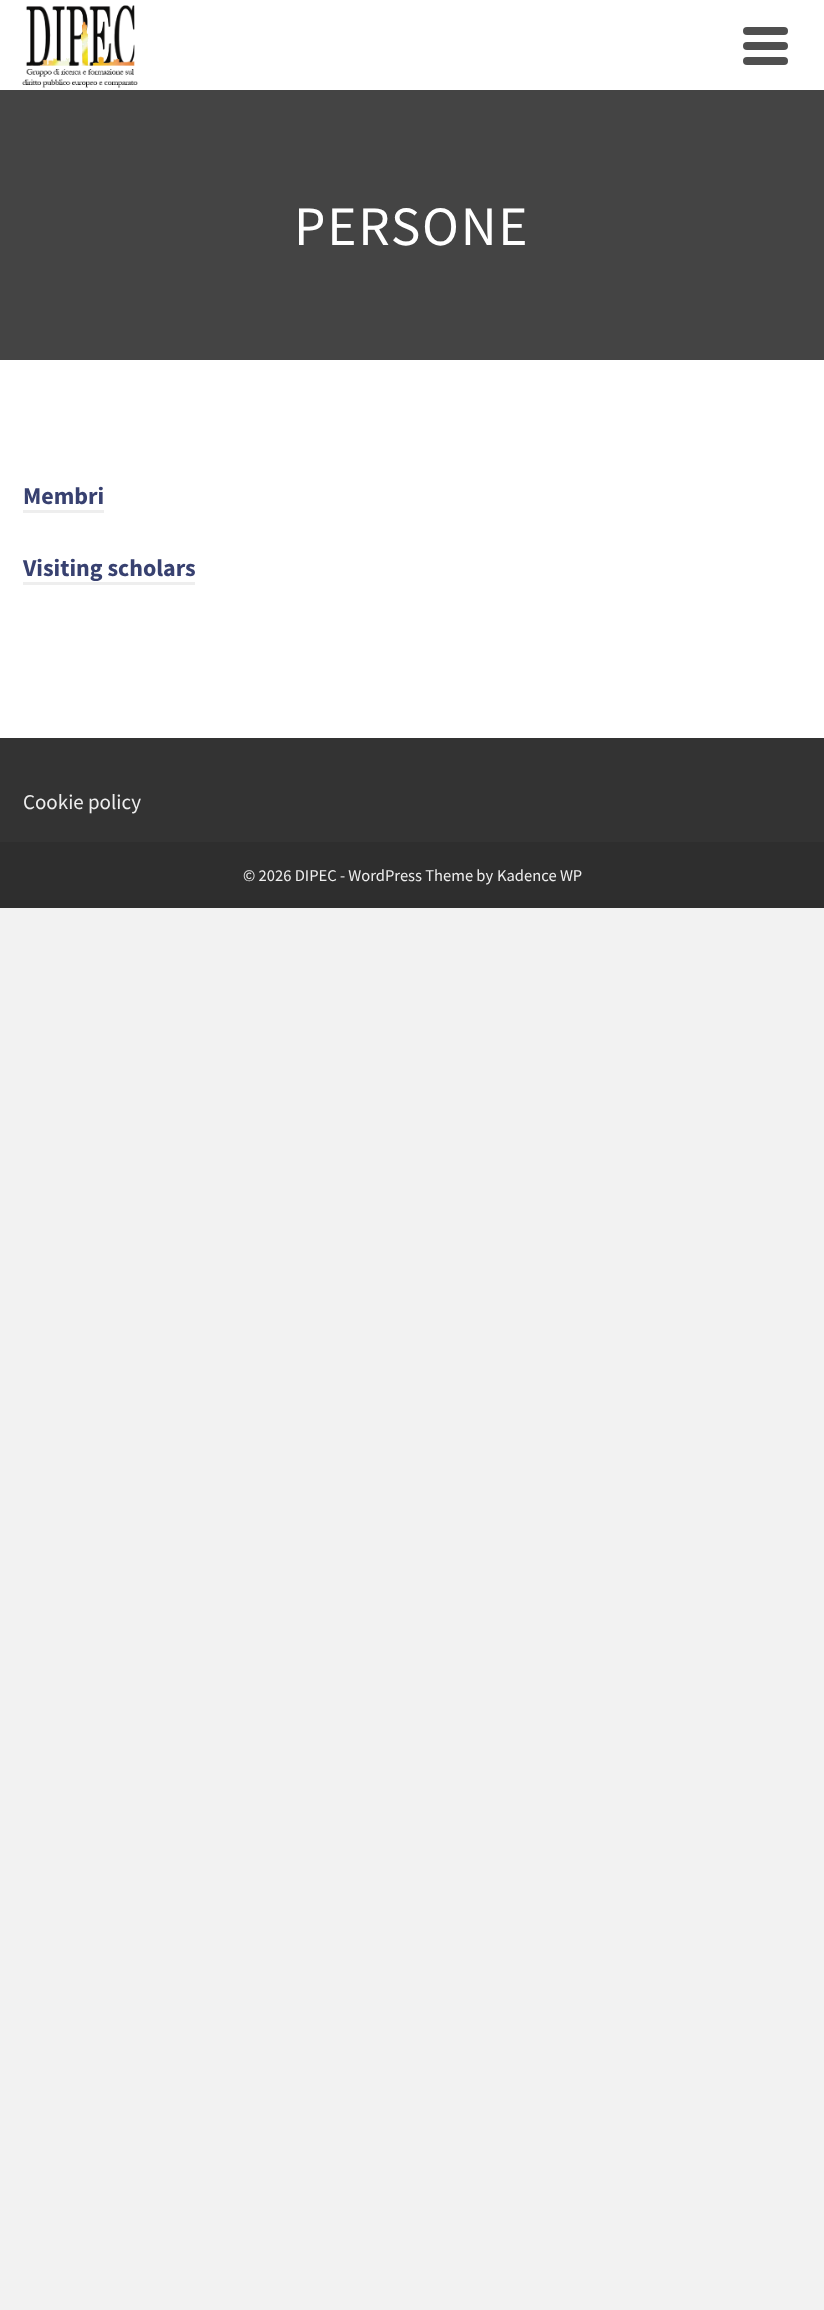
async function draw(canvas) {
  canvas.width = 824
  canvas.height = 2310
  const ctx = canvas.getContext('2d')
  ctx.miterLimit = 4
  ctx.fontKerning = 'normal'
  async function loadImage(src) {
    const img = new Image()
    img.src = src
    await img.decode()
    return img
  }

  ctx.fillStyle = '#f2f2f2'
  ctx.fillRect(0, 0, 824, 2310)
  ctx.fillStyle = '#fff'
  ctx.fillRect(0, 0, 824, 90)
  ctx.drawImage(await loadImage('image0.png'), 22, 5, 116, 83)
  ctx.fillStyle = '#4f4f4f'
  ctx.beginPath()
  ctx.roundRect(743, 27, 45, 8, 4)
  ctx.fill()
  ctx.beginPath()
  ctx.roundRect(743, 42, 45, 8, 4)
  ctx.fill()
  ctx.beginPath()
  ctx.roundRect(743, 57, 45, 8, 4)
  ctx.fill()
  ctx.fillStyle = '#fff'
  ctx.fillRect(0, 360, 824, 378)
  ctx.fillStyle = '#444'
  ctx.fillRect(0, 90, 824, 270)
  ctx.letterSpacing = '1.75px'
  ctx.font = '55.5px Source Sans Pro'
  ctx.fillStyle = '#fff'
  ctx.fillText('PERSONE', 294, 245)
  ctx.letterSpacing = '0px'
  ctx.font = 'bold 24px Source Sans Pro'
  ctx.fillStyle = '#384170'
  ctx.fillText('Membri', 23, 504)
  ctx.fillStyle = '#eee'
  ctx.fillRect(23, 510, 81, 3)
  ctx.fillStyle = '#384170'
  ctx.fillText('Visiting scholars', 23, 576)
  ctx.fillStyle = '#eee'
  ctx.fillRect(23, 582, 172, 3)
  ctx.fillStyle = '#333'
  ctx.fillRect(0, 738, 824, 104)
  ctx.font = '21px Source Sans Pro'
  ctx.fillStyle = '#eee'
  ctx.fillText('Cookie policy', 23, 809)
  ctx.fillStyle = '#2e2e2e'
  ctx.fillRect(0, 842, 824, 66)
  ctx.font = '16.5px Source Sans Pro'
  ctx.fillStyle = '#eee'
  ctx.fillText('© 2026 DIPEC - WordPress Theme by', 243, 881)
  ctx.fillText('Kadence WP', 497, 881)
}

draw(document.querySelector('canvas'))
